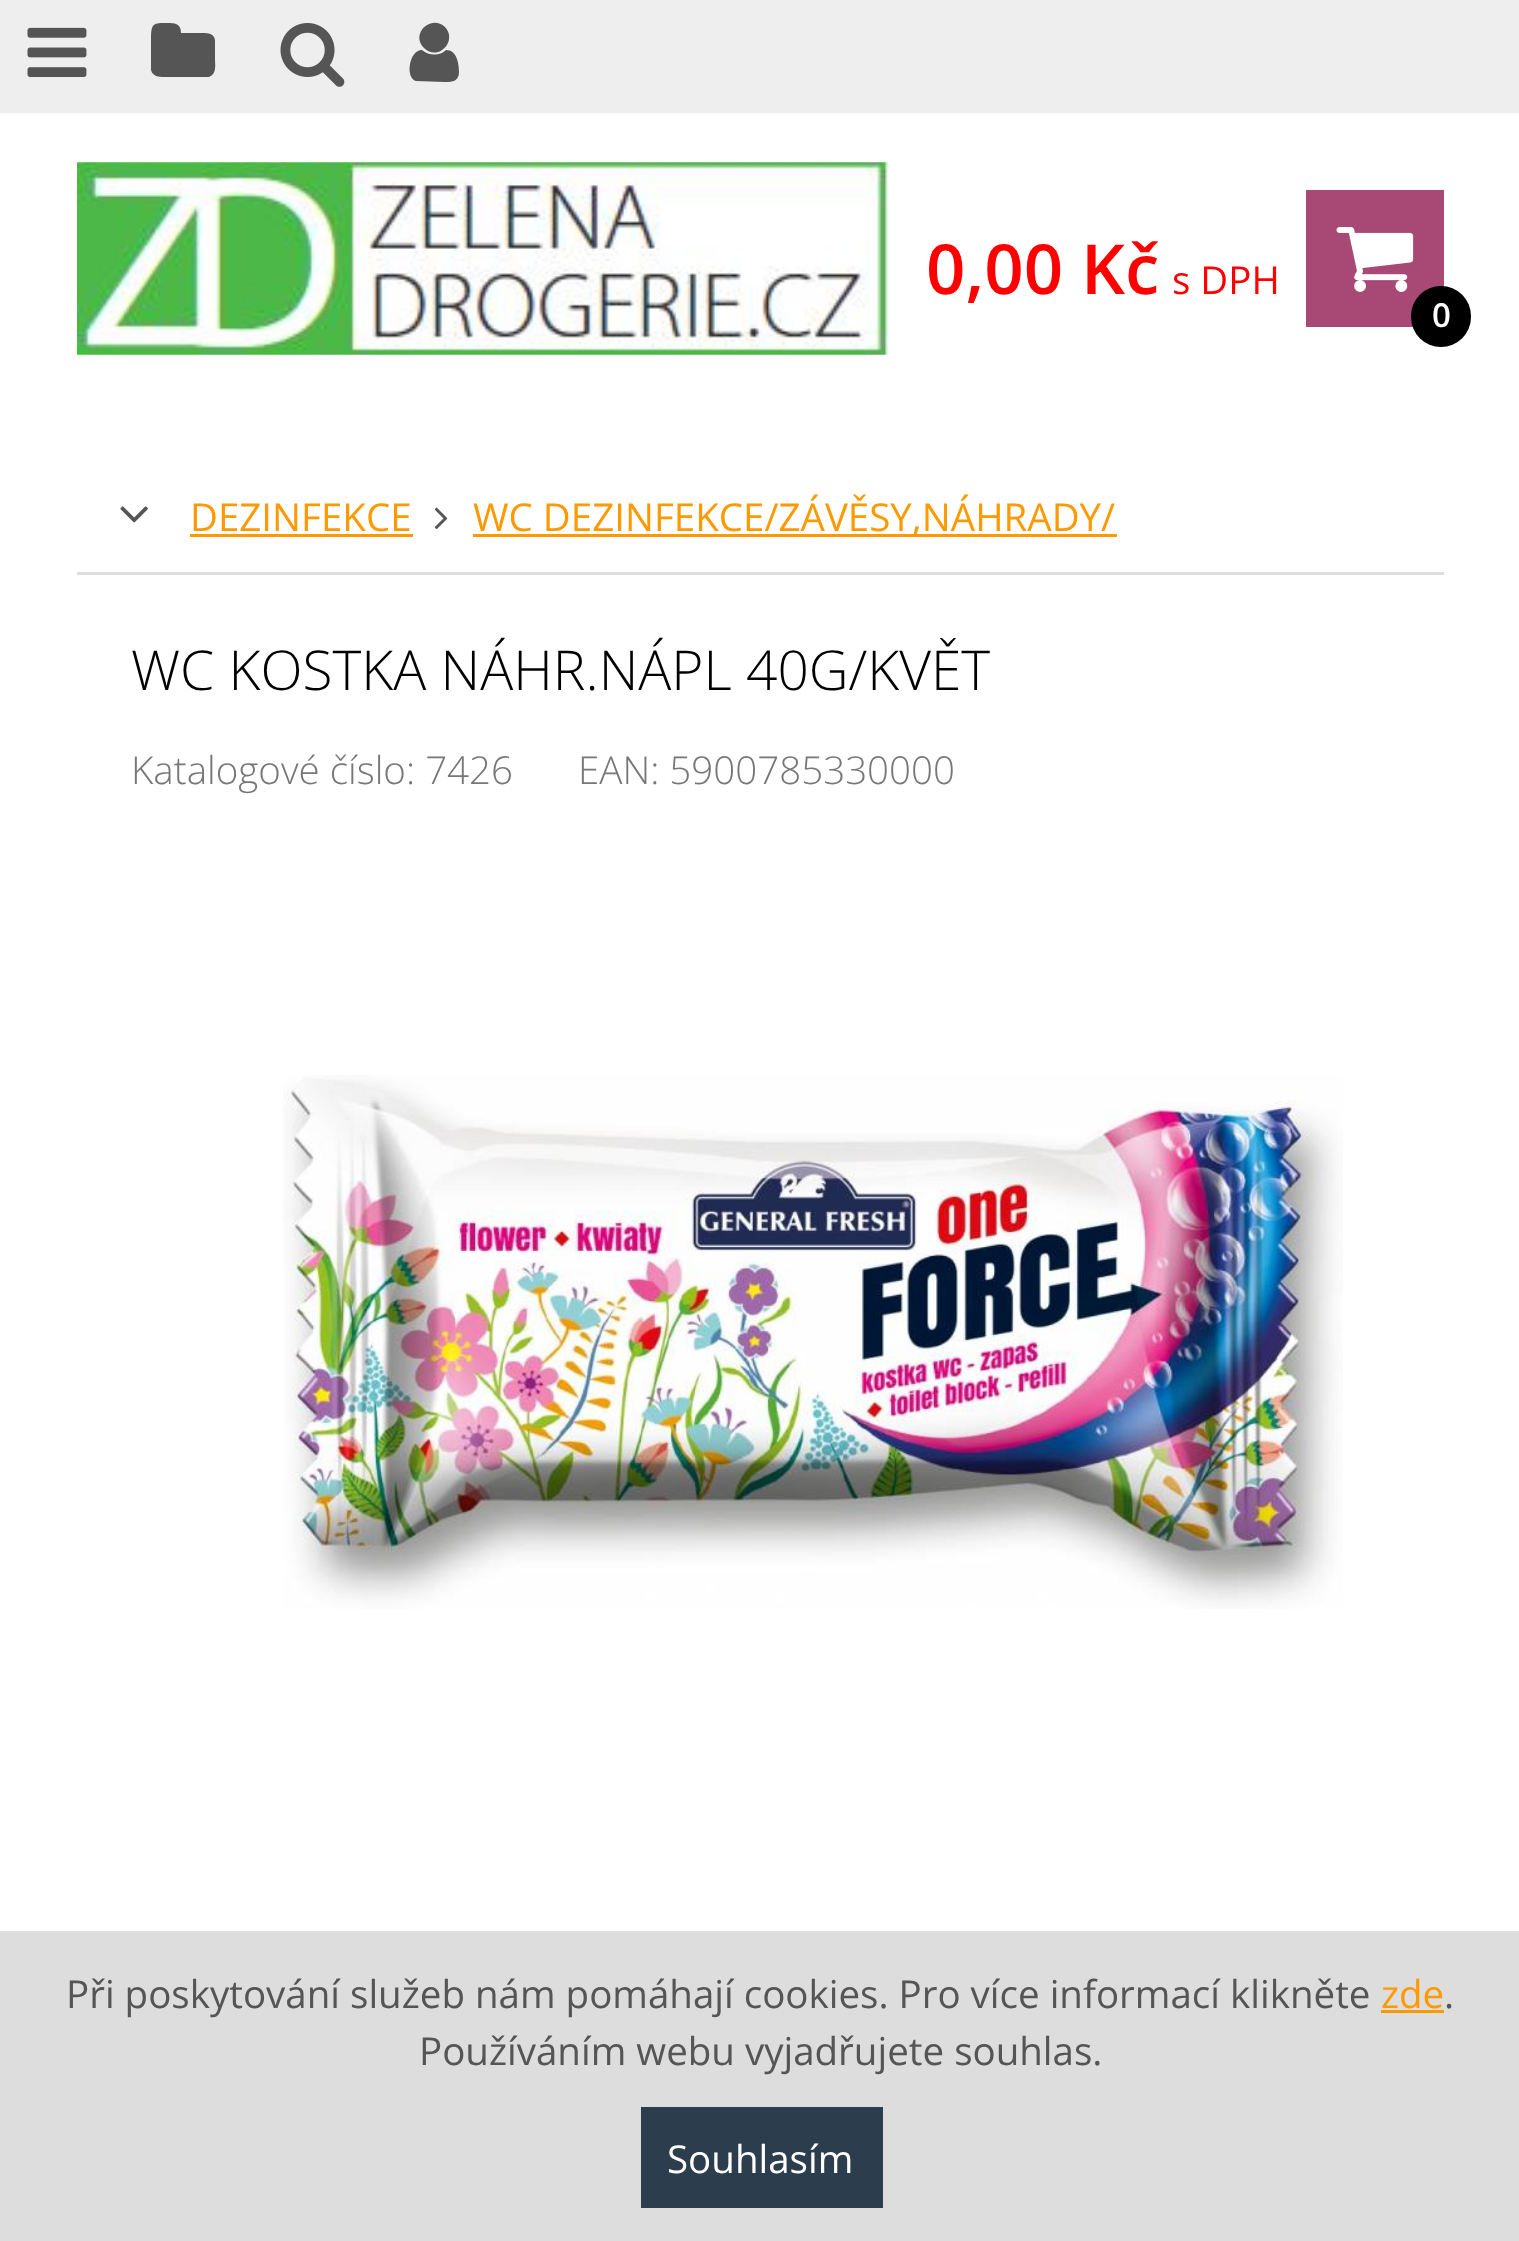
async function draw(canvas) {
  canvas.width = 1519
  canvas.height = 2241
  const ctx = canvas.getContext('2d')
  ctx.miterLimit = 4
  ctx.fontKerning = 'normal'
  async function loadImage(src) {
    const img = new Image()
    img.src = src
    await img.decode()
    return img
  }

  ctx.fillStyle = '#fff'
  ctx.fillRect(0, 0, 1519, 2241)
  ctx.fillStyle = '#eee'
  ctx.fillRect(0, 0, 1519, 113)
  ctx.drawImage(await loadImage('image0.png'), 27, 27, 60, 50)
  ctx.fillStyle = '#555'
  ctx.beginPath()
  ctx.moveTo(215, 41)
  ctx.lineTo(215, 59)
  ctx.bezierCurveTo(215, 65, 217, 74, 209, 77)
  ctx.lineTo(168, 77)
  ctx.bezierCurveTo(162, 77, 153, 78, 151, 70)
  ctx.lineTo(151, 38)
  ctx.bezierCurveTo(151, 35, 151, 31, 152, 28)
  ctx.bezierCurveTo(154, 22, 161, 23, 166, 23)
  ctx.bezierCurveTo(174, 23, 181, 23, 181, 33)
  ctx.lineTo(198, 33)
  ctx.bezierCurveTo(205, 33, 215, 32, 215, 41)
  ctx.closePath()
  ctx.fill()
  ctx.drawImage(await loadImage('image1.png'), 280, 23, 65, 64)
  ctx.beginPath()
  ctx.moveTo(459, 72)
  ctx.bezierCurveTo(459, 81, 453, 82, 445, 82)
  ctx.lineTo(416, 81)
  ctx.bezierCurveTo(405, 78, 409, 50, 422, 50)
  ctx.bezierCurveTo(429, 56, 440, 56, 446, 50)
  ctx.bezierCurveTo(457, 50, 459, 64, 459, 72)
  ctx.closePath()
  ctx.moveTo(445, 27)
  ctx.bezierCurveTo(458, 41, 438, 62, 424, 48)
  ctx.bezierCurveTo(410, 34, 431, 14, 445, 27)
  ctx.closePath()
  ctx.fill()
  ctx.drawImage(await loadImage('image2.png'), 77, 162, 811, 193)
  ctx.font = '600 69px Open Sans'
  ctx.fillStyle = '#f00'
  ctx.fillText('0,00 Kč', 926, 294)
  ctx.font = '38.5px Open Sans'
  ctx.fillText('s DPH', 1172, 294)
  ctx.fillStyle = '#a84975'
  ctx.fillRect(1306, 190, 138, 137)
  ctx.drawImage(await loadImage('image3.png'), 1336, 227, 78, 65)
  ctx.fillStyle = '#000'
  ctx.beginPath()
  ctx.roundRect(1411, 286, 60, 61, 30)
  ctx.fill()
  ctx.font = '600 33px Open Sans'
  ctx.fillStyle = '#fff'
  ctx.fillText('0', 1432, 327)
  ctx.drawImage(await loadImage('image4.png'), 120, 506, 28, 17)
  ctx.font = '38.5px Open Sans'
  ctx.fillStyle = '#f90'
  ctx.fillText('DEZINFEKCE', 190, 531)
  ctx.fillRect(190, 534, 223, 3)
  ctx.drawImage(await loadImage('image5.png'), 434, 507, 14, 22)
  ctx.fillRect(473, 534, 644, 3)
  ctx.fillText('WC DEZINFEKCE/ZÁVĚSY,NÁHRADY/', 473, 531)
  ctx.fillStyle = '#ddd'
  ctx.fillRect(77, 572, 1367, 3)
  ctx.font = '300 55px Open Sans'
  ctx.fillStyle = '#000'
  ctx.fillText('WC KOSTKA NÁHR.NÁPL 40G/KVĚT', 131, 690)
  ctx.font = '300 38.5px Open Sans'
  ctx.fillStyle = '#777'
  ctx.fillText('Katalogové číslo: 7426', 131, 784)
  ctx.fillText('EAN: 5900785330000', 578, 784)
  ctx.drawImage(await loadImage('image6.png'), 283, 1075, 1060, 534)
  ctx.fillStyle = '#ddd'
  ctx.fillRect(0, 1931, 1519, 310)
  ctx.font = '38.5px Open Sans'
  ctx.fillStyle = '#555'
  ctx.fillText('Při poskytování služeb nám pomáhají cookies. Pro více informací klikněte', 66, 2008)
  ctx.fillStyle = '#f90'
  ctx.fillText('zde', 1381, 2008)
  ctx.fillRect(1381, 2010, 63, 3)
  ctx.fillStyle = '#555'
  ctx.fillText('.', 1444, 2008)
  ctx.fillText('Používáním webu vyjadřujete souhlas.', 419, 2065)
  ctx.fillStyle = '#2c3e4d'
  ctx.fillRect(641, 2107, 242, 101)
  ctx.fillStyle = '#fff'
  ctx.fillText('Souhlasím', 667, 2173)
}

draw(document.querySelector('canvas'))
